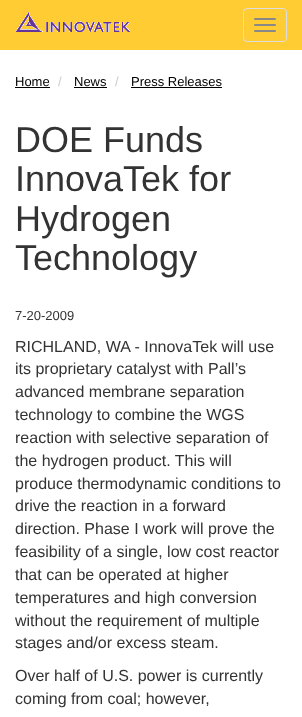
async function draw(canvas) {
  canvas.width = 302
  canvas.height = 717
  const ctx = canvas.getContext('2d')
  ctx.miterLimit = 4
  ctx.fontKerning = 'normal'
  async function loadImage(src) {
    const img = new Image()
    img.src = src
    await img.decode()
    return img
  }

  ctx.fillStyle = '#fff'
  ctx.fillRect(0, 0, 302, 717)
  ctx.fillStyle = '#fc3'
  ctx.fillRect(0, 0, 302, 50)
  ctx.drawImage(await loadImage('image0.png'), 16, 12, 114, 20)
  ctx.beginPath()
  ctx.roundRect(243.5, 8.5, 43, 33, 3.5)
  ctx.strokeStyle = '#ddd'
  ctx.stroke()
  ctx.fillStyle = '#888'
  ctx.beginPath()
  ctx.roundRect(254, 18, 22, 2, 1)
  ctx.fill()
  ctx.beginPath()
  ctx.roundRect(254, 24, 22, 2, 1)
  ctx.fill()
  ctx.beginPath()
  ctx.roundRect(254, 30, 22, 2, 1)
  ctx.fill()
  ctx.font = '13px Liberation Sans'
  ctx.fillStyle = '#000'
  ctx.fillText('Home', 15, 86)
  ctx.fillRect(15, 87, 35, 1)
  ctx.fillStyle = '#ccc'
  ctx.fillText('/', 58, 86)
  ctx.fillStyle = '#000'
  ctx.fillText('News', 74, 86)
  ctx.fillRect(74, 87, 33, 1)
  ctx.fillStyle = '#ccc'
  ctx.fillText('/', 115, 86)
  ctx.fillStyle = '#000'
  ctx.fillText('Press Releases', 131, 86)
  ctx.fillRect(131, 87, 91, 1)
  ctx.font = '36px Liberation Sans'
  ctx.fillStyle = '#333'
  ctx.fillText('DOE Funds', 15, 152)
  ctx.fillText('InnovaTek for', 15, 191)
  ctx.fillText('Hydrogen', 15, 231)
  ctx.fillText('Technology', 15, 270)
  ctx.font = '13px Liberation Sans'
  ctx.fillText('7-20-2009', 15, 320)
  ctx.font = '16px Liberation Sans'
  ctx.fillText('RICHLAND, WA - InnovaTek will use', 15, 352)
  ctx.fillText('its proprietary catalyst with Pall’s', 15, 374)
  ctx.fillText('advanced membrane separation', 15, 397)
  ctx.fillText('technology to combine the WGS', 15, 420)
  ctx.fillText('reaction with selective separation of', 15, 443)
  ctx.fillText('the hydrogen product. This will', 15, 466)
  ctx.fillText('produce thermodynamic conditions to', 15, 489)
  ctx.fillText('drive the reaction in a forward', 15, 511)
  ctx.fillText('direction. Phase I work will prove the', 15, 534)
  ctx.fillText('feasibility of a single, low cost reactor', 15, 557)
  ctx.fillText('that can be operated at higher', 15, 580)
  ctx.fillText('temperatures and high conversion', 15, 603)
  ctx.fillText('without the requirement of multiple', 15, 626)
  ctx.fillText('stages and/or excess steam.', 15, 648)
  ctx.fillText('Over half of U.S. power is currently', 15, 681)
  ctx.fillText('coming from coal; however,', 15, 704)
}

draw(document.querySelector('canvas'))
